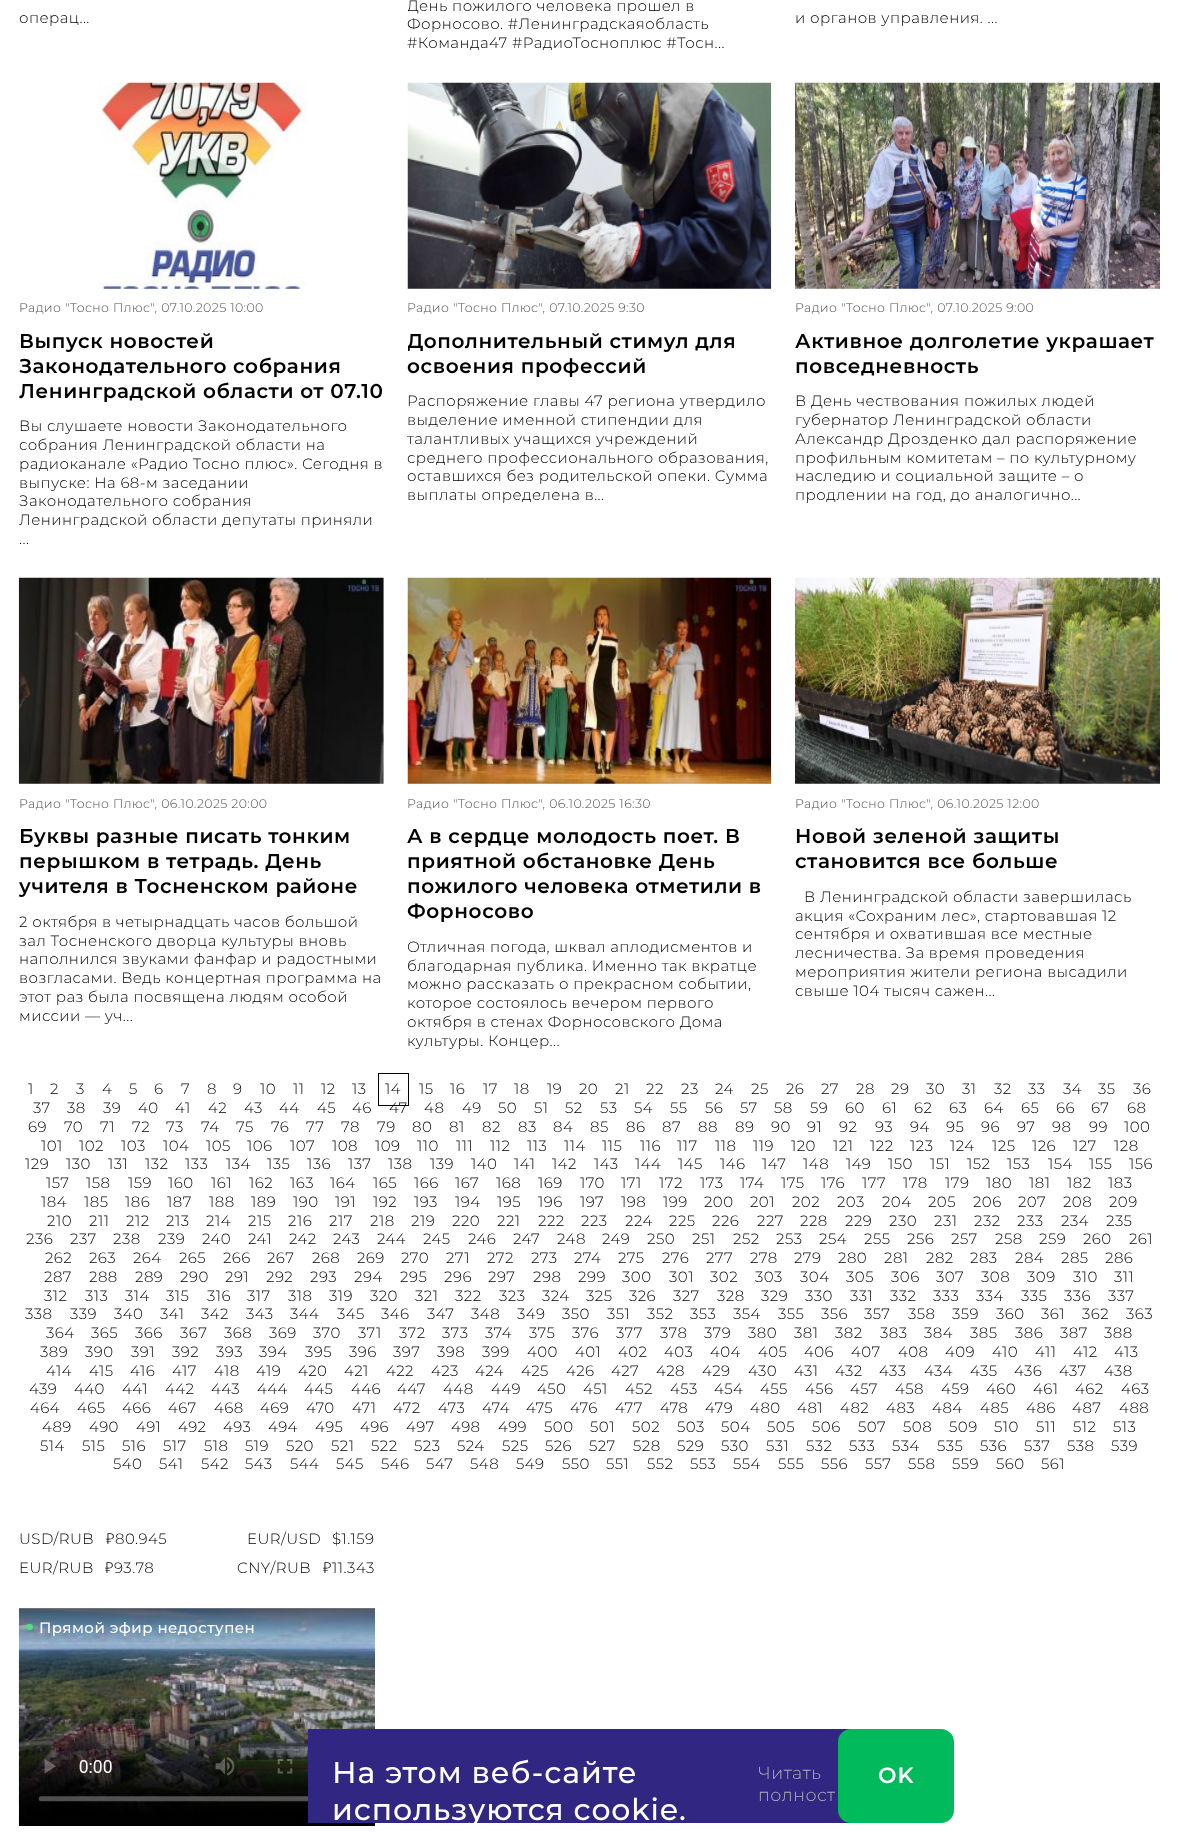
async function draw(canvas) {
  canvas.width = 1178
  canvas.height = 1835
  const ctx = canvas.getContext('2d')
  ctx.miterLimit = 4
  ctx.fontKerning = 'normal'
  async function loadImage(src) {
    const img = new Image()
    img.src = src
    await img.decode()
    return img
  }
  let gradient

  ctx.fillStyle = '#fff'
  ctx.fillRect(0, 0, 1178, 1835)
  ctx.letterSpacing = '0.45px'
  ctx.font = '300 15px Montserrat'
  ctx.fillStyle = '#000'
  ctx.fillText('операц...', 19, 23)
  ctx.save()
  ctx.beginPath()
  ctx.rect(408, 0, 363, 83)
  ctx.clip()
  ctx.fillText('День пожилого человека прошел в', 407, 11)
  ctx.restore()
  ctx.fillText('Форносово. #Ленинградскаяобласть', 407, 29)
  ctx.fillText('#Команда47 #РадиоТосноплюс #Тосн...', 407, 48)
  ctx.fillText('и органов управления. ...', 795, 23)
  ctx.drawImage(await loadImage('image0.png'), 99, 82, 208, 207)
  ctx.letterSpacing = '0.4px'
  ctx.font = '300 12.5px Montserrat'
  ctx.fillStyle = '#4d4d4d'
  ctx.fillText('Радио "Тосно Плюс", 07.10.2025 10:00', 19, 312)
  ctx.letterSpacing = '0.6px'
  ctx.font = '600 20px Montserrat'
  ctx.fillStyle = '#000'
  ctx.fillText('Выпуск новостей', 19, 348)
  ctx.fillText('Законодательного собрания', 19, 373)
  ctx.fillText('Ленинградской области от 07.10', 19, 398)
  ctx.letterSpacing = '0.45px'
  ctx.font = '300 15px Montserrat'
  ctx.fillText('Вы слушаете новости Законодательного', 19, 431)
  ctx.fillText('собрания Ленинградской области на', 19, 450)
  ctx.fillText('радиоканале «Радио Тосно плюс». Сегодня в', 19, 469)
  ctx.fillText('выпуске: На 68-м заседании', 19, 488)
  ctx.fillText('Законодательного собрания', 19, 506)
  ctx.fillText('Ленинградской области депутаты приняли', 19, 525)
  ctx.fillText('...', 19, 544)
  ctx.drawImage(await loadImage('image1.png'), 407, 82, 365, 207)
  ctx.letterSpacing = '0.4px'
  ctx.font = '300 12.5px Montserrat'
  ctx.fillStyle = '#4d4d4d'
  ctx.fillText('Радио "Тосно Плюс", 07.10.2025 9:30', 407, 312)
  ctx.save()
  ctx.beginPath()
  ctx.rect(408, 83, 363, 451)
  ctx.clip()
  ctx.letterSpacing = '0.6px'
  ctx.font = '600 20px Montserrat'
  ctx.fillStyle = '#000'
  ctx.fillText('Дополнительный стимул для', 407, 348)
  ctx.restore()
  ctx.letterSpacing = '0.6px'
  ctx.font = '600 20px Montserrat'
  ctx.fillStyle = '#000'
  ctx.fillText('освоения профессий', 407, 373)
  ctx.letterSpacing = '0.45px'
  ctx.font = '300 15px Montserrat'
  ctx.fillText('Распоряжение главы 47 региона утвердило', 407, 406)
  ctx.fillText('выделение именной стипендии для', 407, 425)
  ctx.fillText('талантливых учащихся учреждений', 407, 444)
  ctx.fillText('среднего профессионального образования,', 407, 463)
  ctx.fillText('оставшихся без родительской опеки. Сумма', 407, 481)
  ctx.fillText('выплаты определена в...', 407, 500)
  ctx.drawImage(await loadImage('image2.png'), 795, 82, 365, 207)
  ctx.letterSpacing = '0.4px'
  ctx.font = '300 12.5px Montserrat'
  ctx.fillStyle = '#4d4d4d'
  ctx.fillText('Радио "Тосно Плюс", 07.10.2025 9:00', 795, 312)
  ctx.letterSpacing = '0.6px'
  ctx.font = '600 20px Montserrat'
  ctx.fillStyle = '#000'
  ctx.fillText('Активное долголетие украшает', 795, 348)
  ctx.fillText('повседневность', 795, 373)
  ctx.letterSpacing = '0.45px'
  ctx.font = '300 15px Montserrat'
  ctx.fillText('В День чествования пожилых людей', 795, 406)
  ctx.fillText('губернатор Ленинградской области', 795, 425)
  ctx.fillText('Александр Дрозденко дал распоряжение', 795, 444)
  ctx.fillText('профильным комитетам – по культурному', 795, 463)
  ctx.fillText('наследию и социальной защите – о', 795, 481)
  ctx.fillText('продлении на год, до аналогично...', 795, 500)
  ctx.drawImage(await loadImage('image3.png'), 18, 577, 366, 207)
  ctx.letterSpacing = '0.4px'
  ctx.font = '300 12.5px Montserrat'
  ctx.fillStyle = '#4d4d4d'
  ctx.fillText('Радио "Тосно Плюс", 06.10.2025 20:00', 19, 808)
  ctx.letterSpacing = '0.6px'
  ctx.font = '600 20px Montserrat'
  ctx.fillStyle = '#000'
  ctx.fillText('Буквы разные писать тонким', 19, 843)
  ctx.fillText('перышком в тетрадь. День', 19, 868)
  ctx.fillText('учителя в Тосненском районе', 19, 893)
  ctx.letterSpacing = '0.45px'
  ctx.font = '300 15px Montserrat'
  ctx.fillText('2 октября в четырнадцать часов большой', 19, 927)
  ctx.fillText('зал Тосненского дворца культуры вновь', 19, 946)
  ctx.fillText('наполнился звуками фанфар и радостными', 19, 964)
  ctx.fillText('возгласами. Ведь концертная программа на', 19, 983)
  ctx.fillText('этот раз была посвящена людям особой', 19, 1002)
  ctx.fillText('миссии — уч...', 19, 1021)
  ctx.drawImage(await loadImage('image4.png'), 407, 577, 365, 207)
  ctx.letterSpacing = '0.4px'
  ctx.font = '300 12.5px Montserrat'
  ctx.fillStyle = '#4d4d4d'
  ctx.fillText('Радио "Тосно Плюс", 06.10.2025 16:30', 407, 808)
  ctx.letterSpacing = '0.6px'
  ctx.font = '600 20px Montserrat'
  ctx.fillStyle = '#000'
  ctx.fillText('А в сердце молодость поет. В', 407, 843)
  ctx.fillText('приятной обстановке День', 407, 868)
  ctx.fillText('пожилого человека отметили в', 407, 893)
  ctx.fillText('Форносово', 407, 918)
  ctx.letterSpacing = '0.45px'
  ctx.font = '300 15px Montserrat'
  ctx.fillText('Отличная погода, шквал аплодисментов и', 407, 952)
  ctx.fillText('благодарная публика. Именно так вкратце', 407, 971)
  ctx.fillText('можно рассказать о прекрасном событии,', 407, 989)
  ctx.fillText('которое состоялось вечером первого', 407, 1008)
  ctx.fillText('октября в стенах Форносовского Дома', 407, 1027)
  ctx.fillText('культуры. Концер...', 407, 1046)
  ctx.drawImage(await loadImage('image5.png'), 795, 577, 365, 207)
  ctx.letterSpacing = '0.4px'
  ctx.font = '300 12.5px Montserrat'
  ctx.fillStyle = '#4d4d4d'
  ctx.fillText('Радио "Тосно Плюс", 06.10.2025 12:00', 795, 808)
  ctx.letterSpacing = '0.6px'
  ctx.font = '600 20px Montserrat'
  ctx.fillStyle = '#000'
  ctx.fillText('Новой зеленой защиты', 795, 843)
  ctx.fillText('становится все больше', 795, 868)
  ctx.letterSpacing = '0.45px'
  ctx.font = '300 15px Montserrat'
  ctx.fillText('В Ленинградской области завершилась', 804, 902)
  ctx.fillText('акция «Сохраним лес», стартовавшая 12', 795, 921)
  ctx.fillText('сентября и охватившая все местные', 795, 939)
  ctx.fillText('лесничества. За время проведения', 795, 958)
  ctx.fillText('мероприятия жители региона высадили', 795, 977)
  ctx.fillText('свыше 104 тысяч сажен...', 795, 996)
  ctx.fillText('1', 28, 1094)
  ctx.fillText('2', 50, 1094)
  ctx.fillText('3', 76, 1094)
  ctx.fillText('4', 102, 1094)
  ctx.fillText('5', 129, 1094)
  ctx.fillText('6', 154, 1094)
  ctx.fillText('7', 181, 1094)
  ctx.fillText('8', 207, 1094)
  ctx.fillText('9', 233, 1094)
  ctx.fillText('10', 260, 1094)
  ctx.fillText('11', 293, 1094)
  ctx.fillText('12', 321, 1094)
  ctx.fillText('13', 352, 1094)
  ctx.strokeStyle = '#000'
  ctx.strokeRect(378.5, 1073.5, 30, 32)
  ctx.fillText('14', 385, 1094)
  ctx.fillText('15', 419, 1094)
  ctx.fillText('16', 450, 1094)
  ctx.fillText('17', 483, 1094)
  ctx.fillText('18', 514, 1094)
  ctx.fillText('19', 547, 1094)
  ctx.fillText('20', 579, 1094)
  ctx.fillText('21', 615, 1094)
  ctx.fillText('22', 646, 1094)
  ctx.fillText('23', 681, 1094)
  ctx.fillText('24', 715, 1094)
  ctx.fillText('25', 751, 1094)
  ctx.fillText('26', 786, 1094)
  ctx.fillText('27', 821, 1094)
  ctx.fillText('28', 856, 1094)
  ctx.fillText('29', 891, 1094)
  ctx.fillText('30', 926, 1094)
  ctx.fillText('31', 962, 1094)
  ctx.fillText('32', 994, 1094)
  ctx.fillText('33', 1028, 1094)
  ctx.fillText('34', 1063, 1094)
  ctx.fillText('35', 1098, 1094)
  ctx.fillText('36', 1133, 1094)
  ctx.fillText('37', 33, 1113)
  ctx.fillText('38', 67, 1113)
  ctx.fillText('39', 103, 1113)
  ctx.fillText('40', 138, 1113)
  ctx.fillText('41', 175, 1113)
  ctx.fillText('42', 208, 1113)
  ctx.fillText('43', 244, 1113)
  ctx.fillText('44', 279, 1113)
  ctx.fillText('45', 317, 1113)
  ctx.fillText('46', 352, 1113)
  ctx.fillText('47', 389, 1113)
  ctx.fillText('48', 424, 1113)
  ctx.fillText('49', 462, 1113)
  ctx.fillText('50', 498, 1113)
  ctx.fillText('51', 534, 1113)
  ctx.fillText('52', 565, 1113)
  ctx.fillText('53', 600, 1113)
  ctx.fillText('54', 634, 1113)
  ctx.fillText('55', 670, 1113)
  ctx.fillText('56', 705, 1113)
  ctx.fillText('57', 740, 1113)
  ctx.fillText('58', 774, 1113)
  ctx.fillText('59', 810, 1113)
  ctx.fillText('60', 845, 1113)
  ctx.fillText('61', 882, 1113)
  ctx.fillText('62', 914, 1113)
  ctx.fillText('63', 949, 1113)
  ctx.fillText('64', 984, 1113)
  ctx.fillText('65', 1021, 1113)
  ctx.fillText('66', 1056, 1113)
  ctx.fillText('67', 1091, 1113)
  ctx.fillText('68', 1127, 1113)
  ctx.fillText('69', 28, 1132)
  ctx.fillText('70', 64, 1132)
  ctx.fillText('71', 100, 1132)
  ctx.fillText('72', 132, 1132)
  ctx.fillText('73', 166, 1132)
  ctx.fillText('74', 201, 1132)
  ctx.fillText('75', 236, 1132)
  ctx.fillText('76', 271, 1132)
  ctx.fillText('77', 306, 1132)
  ctx.fillText('78', 341, 1132)
  ctx.fillText('79', 377, 1132)
  ctx.fillText('80', 412, 1132)
  ctx.fillText('81', 449, 1132)
  ctx.fillText('82', 482, 1132)
  ctx.fillText('83', 518, 1132)
  ctx.fillText('84', 553, 1132)
  ctx.fillText('85', 590, 1132)
  ctx.fillText('86', 626, 1132)
  ctx.fillText('87', 662, 1132)
  ctx.fillText('88', 698, 1132)
  ctx.fillText('89', 735, 1132)
  ctx.fillText('90', 771, 1132)
  ctx.fillText('91', 807, 1132)
  ctx.fillText('92', 839, 1132)
  ctx.fillText('93', 875, 1132)
  ctx.fillText('94', 910, 1132)
  ctx.fillText('95', 946, 1132)
  ctx.fillText('96', 981, 1132)
  ctx.fillText('97', 1017, 1132)
  ctx.fillText('98', 1052, 1132)
  ctx.fillText('99', 1089, 1132)
  ctx.fillText('100', 1124, 1132)
  ctx.fillText('101', 41, 1151)
  ctx.fillText('102', 79, 1151)
  ctx.fillText('103', 121, 1151)
  ctx.fillText('104', 163, 1151)
  ctx.fillText('105', 206, 1151)
  ctx.fillText('106', 247, 1151)
  ctx.fillText('107', 290, 1151)
  ctx.fillText('108', 332, 1151)
  ctx.fillText('109', 375, 1151)
  ctx.fillText('110', 417, 1151)
  ctx.fillText('111', 456, 1151)
  ctx.fillText('112', 490, 1151)
  ctx.fillText('113', 527, 1151)
  ctx.fillText('114', 564, 1151)
  ctx.fillText('115', 602, 1151)
  ctx.fillText('116', 640, 1151)
  ctx.fillText('117', 677, 1151)
  ctx.fillText('118', 715, 1151)
  ctx.fillText('119', 753, 1151)
  ctx.fillText('120', 791, 1151)
  ctx.fillText('121', 833, 1151)
  ctx.fillText('122', 870, 1151)
  ctx.fillText('123', 910, 1151)
  ctx.fillText('124', 950, 1151)
  ctx.fillText('125', 992, 1151)
  ctx.fillText('126', 1032, 1151)
  ctx.fillText('127', 1073, 1151)
  ctx.fillText('128', 1114, 1151)
  ctx.fillText('129', 25, 1169)
  ctx.fillText('130', 66, 1169)
  ctx.fillText('131', 108, 1169)
  ctx.fillText('132', 145, 1169)
  ctx.fillText('133', 185, 1169)
  ctx.fillText('134', 226, 1169)
  ctx.fillText('135', 267, 1169)
  ctx.fillText('136', 307, 1169)
  ctx.fillText('137', 348, 1169)
  ctx.fillText('138', 388, 1169)
  ctx.fillText('139', 430, 1169)
  ctx.fillText('140', 471, 1169)
  ctx.fillText('141', 514, 1169)
  ctx.fillText('142', 552, 1169)
  ctx.fillText('143', 594, 1169)
  ctx.fillText('144', 635, 1169)
  ctx.fillText('145', 678, 1169)
  ctx.fillText('146', 720, 1169)
  ctx.fillText('147', 762, 1169)
  ctx.fillText('148', 803, 1169)
  ctx.fillText('149', 846, 1169)
  ctx.fillText('150', 888, 1169)
  ctx.fillText('151', 930, 1169)
  ctx.fillText('152', 967, 1169)
  ctx.fillText('153', 1007, 1169)
  ctx.fillText('154', 1048, 1169)
  ctx.fillText('155', 1089, 1169)
  ctx.fillText('156', 1129, 1169)
  ctx.fillText('157', 46, 1188)
  ctx.fillText('158', 86, 1188)
  ctx.fillText('159', 128, 1188)
  ctx.fillText('160', 168, 1188)
  ctx.fillText('161', 211, 1188)
  ctx.fillText('162', 249, 1188)
  ctx.fillText('163', 290, 1188)
  ctx.fillText('164', 330, 1188)
  ctx.fillText('165', 373, 1188)
  ctx.fillText('166', 414, 1188)
  ctx.fillText('167', 455, 1188)
  ctx.fillText('168', 496, 1188)
  ctx.fillText('169', 538, 1188)
  ctx.fillText('170', 580, 1188)
  ctx.fillText('171', 621, 1188)
  ctx.fillText('172', 659, 1188)
  ctx.fillText('173', 700, 1188)
  ctx.fillText('174', 740, 1188)
  ctx.fillText('175', 781, 1188)
  ctx.fillText('176', 821, 1188)
  ctx.fillText('177', 862, 1188)
  ctx.fillText('178', 903, 1188)
  ctx.fillText('179', 945, 1188)
  ctx.fillText('180', 986, 1188)
  ctx.fillText('181', 1029, 1188)
  ctx.fillText('182', 1067, 1188)
  ctx.fillText('183', 1108, 1188)
  ctx.fillText('184', 41, 1207)
  ctx.fillText('185', 84, 1207)
  ctx.fillText('186', 125, 1207)
  ctx.fillText('187', 167, 1207)
  ctx.fillText('188', 209, 1207)
  ctx.fillText('189', 251, 1207)
  ctx.fillText('190', 293, 1207)
  ctx.fillText('191', 335, 1207)
  ctx.fillText('192', 373, 1207)
  ctx.fillText('193', 414, 1207)
  ctx.fillText('194', 455, 1207)
  ctx.fillText('195', 497, 1207)
  ctx.fillText('196', 538, 1207)
  ctx.fillText('197', 580, 1207)
  ctx.fillText('198', 621, 1207)
  ctx.fillText('199', 663, 1207)
  ctx.fillText('200', 704, 1207)
  ctx.fillText('201', 750, 1207)
  ctx.fillText('202', 792, 1207)
  ctx.fillText('203', 837, 1207)
  ctx.fillText('204', 882, 1207)
  ctx.fillText('205', 928, 1207)
  ctx.fillText('206', 973, 1207)
  ctx.fillText('207', 1018, 1207)
  ctx.fillText('208', 1063, 1207)
  ctx.fillText('209', 1109, 1207)
  ctx.fillText('210', 47, 1226)
  ctx.fillText('211', 89, 1226)
  ctx.fillText('212', 126, 1226)
  ctx.fillText('213', 166, 1226)
  ctx.fillText('214', 206, 1226)
  ctx.fillText('215', 248, 1226)
  ctx.fillText('216', 288, 1226)
  ctx.fillText('217', 329, 1226)
  ctx.fillText('218', 370, 1226)
  ctx.fillText('219', 411, 1226)
  ctx.fillText('220', 452, 1226)
  ctx.fillText('221', 497, 1226)
  ctx.fillText('222', 538, 1226)
  ctx.fillText('223', 581, 1226)
  ctx.fillText('224', 625, 1226)
  ctx.fillText('225', 669, 1226)
  ctx.fillText('226', 712, 1226)
  ctx.fillText('227', 757, 1226)
  ctx.fillText('228', 800, 1226)
  ctx.fillText('229', 845, 1226)
  ctx.fillText('230', 889, 1226)
  ctx.fillText('231', 934, 1226)
  ctx.fillText('232', 974, 1226)
  ctx.fillText('233', 1017, 1226)
  ctx.fillText('234', 1061, 1226)
  ctx.fillText('235', 1106, 1226)
  ctx.fillText('236', 26, 1244)
  ctx.fillText('237', 70, 1244)
  ctx.fillText('238', 113, 1244)
  ctx.fillText('239', 158, 1244)
  ctx.fillText('240', 202, 1244)
  ctx.fillText('241', 248, 1244)
  ctx.fillText('242', 289, 1244)
  ctx.fillText('243', 333, 1244)
  ctx.fillText('244', 377, 1244)
  ctx.fillText('245', 423, 1244)
  ctx.fillText('246', 468, 1244)
  ctx.fillText('247', 513, 1244)
  ctx.fillText('248', 557, 1244)
  ctx.fillText('249', 602, 1244)
  ctx.fillText('250', 647, 1244)
  ctx.fillText('251', 692, 1244)
  ctx.fillText('252', 733, 1244)
  ctx.fillText('253', 776, 1244)
  ctx.fillText('254', 819, 1244)
  ctx.fillText('255', 864, 1244)
  ctx.fillText('256', 907, 1244)
  ctx.fillText('257', 951, 1244)
  ctx.fillText('258', 995, 1244)
  ctx.fillText('259', 1039, 1244)
  ctx.fillText('260', 1083, 1244)
  ctx.fillText('261', 1129, 1244)
  ctx.fillText('262', 45, 1263)
  ctx.fillText('263', 89, 1263)
  ctx.fillText('264', 133, 1263)
  ctx.fillText('265', 179, 1263)
  ctx.fillText('266', 223, 1263)
  ctx.fillText('267', 267, 1263)
  ctx.fillText('268', 312, 1263)
  ctx.fillText('269', 357, 1263)
  ctx.fillText('270', 401, 1263)
  ctx.fillText('271', 446, 1263)
  ctx.fillText('272', 487, 1263)
  ctx.fillText('273', 531, 1263)
  ctx.fillText('274', 574, 1263)
  ctx.fillText('275', 618, 1263)
  ctx.fillText('276', 662, 1263)
  ctx.fillText('277', 706, 1263)
  ctx.fillText('278', 750, 1263)
  ctx.fillText('279', 794, 1263)
  ctx.fillText('280', 838, 1263)
  ctx.fillText('281', 884, 1263)
  ctx.fillText('282', 926, 1263)
  ctx.fillText('283', 970, 1263)
  ctx.fillText('284', 1015, 1263)
  ctx.fillText('285', 1061, 1263)
  ctx.fillText('286', 1105, 1263)
  ctx.fillText('287', 44, 1282)
  ctx.fillText('288', 89, 1282)
  ctx.fillText('289', 135, 1282)
  ctx.fillText('290', 180, 1282)
  ctx.fillText('291', 225, 1282)
  ctx.fillText('292', 266, 1282)
  ctx.fillText('293', 310, 1282)
  ctx.fillText('294', 354, 1282)
  ctx.fillText('295', 400, 1282)
  ctx.fillText('296', 444, 1282)
  ctx.fillText('297', 488, 1282)
  ctx.fillText('298', 533, 1282)
  ctx.fillText('299', 578, 1282)
  ctx.fillText('300', 622, 1282)
  ctx.fillText('301', 669, 1282)
  ctx.fillText('302', 710, 1282)
  ctx.fillText('303', 755, 1282)
  ctx.fillText('304', 800, 1282)
  ctx.fillText('305', 846, 1282)
  ctx.fillText('306', 891, 1282)
  ctx.fillText('307', 936, 1282)
  ctx.fillText('308', 981, 1282)
  ctx.fillText('309', 1027, 1282)
  ctx.fillText('310', 1073, 1282)
  ctx.fillText('311', 1114, 1282)
  ctx.fillText('312', 44, 1301)
  ctx.fillText('313', 85, 1301)
  ctx.fillText('314', 125, 1301)
  ctx.fillText('315', 166, 1301)
  ctx.fillText('316', 207, 1301)
  ctx.fillText('317', 247, 1301)
  ctx.fillText('318', 288, 1301)
  ctx.fillText('319', 329, 1301)
  ctx.fillText('320', 370, 1301)
  ctx.fillText('321', 415, 1301)
  ctx.fillText('322', 455, 1301)
  ctx.fillText('323', 499, 1301)
  ctx.fillText('324', 542, 1301)
  ctx.fillText('325', 586, 1301)
  ctx.fillText('326', 629, 1301)
  ctx.fillText('327', 673, 1301)
  ctx.fillText('328', 717, 1301)
  ctx.fillText('329', 761, 1301)
  ctx.fillText('330', 805, 1301)
  ctx.fillText('331', 850, 1301)
  ctx.fillText('332', 890, 1301)
  ctx.fillText('333', 933, 1301)
  ctx.fillText('334', 976, 1301)
  ctx.fillText('335', 1021, 1301)
  ctx.fillText('336', 1064, 1301)
  ctx.fillText('337', 1108, 1301)
  ctx.fillText('338', 25, 1319)
  ctx.fillText('339', 70, 1319)
  ctx.fillText('340', 114, 1319)
  ctx.fillText('341', 160, 1319)
  ctx.fillText('342', 201, 1319)
  ctx.fillText('343', 246, 1319)
  ctx.fillText('344', 290, 1319)
  ctx.fillText('345', 337, 1319)
  ctx.fillText('346', 381, 1319)
  ctx.fillText('347', 427, 1319)
  ctx.fillText('348', 471, 1319)
  ctx.fillText('349', 517, 1319)
  ctx.fillText('350', 562, 1319)
  ctx.fillText('351', 607, 1319)
  ctx.fillText('352', 647, 1319)
  ctx.fillText('353', 690, 1319)
  ctx.fillText('354', 733, 1319)
  ctx.fillText('355', 778, 1319)
  ctx.fillText('356', 821, 1319)
  ctx.fillText('357', 864, 1319)
  ctx.fillText('358', 908, 1319)
  ctx.fillText('359', 952, 1319)
  ctx.fillText('360', 996, 1319)
  ctx.fillText('361', 1041, 1319)
  ctx.fillText('362', 1082, 1319)
  ctx.fillText('363', 1126, 1319)
  ctx.fillText('364', 46, 1338)
  ctx.fillText('365', 91, 1338)
  ctx.fillText('366', 135, 1338)
  ctx.fillText('367', 180, 1338)
  ctx.fillText('368', 224, 1338)
  ctx.fillText('369', 269, 1338)
  ctx.fillText('370', 313, 1338)
  ctx.fillText('371', 358, 1338)
  ctx.fillText('372', 399, 1338)
  ctx.fillText('373', 442, 1338)
  ctx.fillText('374', 485, 1338)
  ctx.fillText('375', 529, 1338)
  ctx.fillText('376', 572, 1338)
  ctx.fillText('377', 616, 1338)
  ctx.fillText('378', 660, 1338)
  ctx.fillText('379', 704, 1338)
  ctx.fillText('380', 748, 1338)
  ctx.fillText('381', 794, 1338)
  ctx.fillText('382', 835, 1338)
  ctx.fillText('383', 880, 1338)
  ctx.fillText('384', 924, 1338)
  ctx.fillText('385', 970, 1338)
  ctx.fillText('386', 1015, 1338)
  ctx.fillText('387', 1060, 1338)
  ctx.fillText('388', 1104, 1338)
  ctx.fillText('389', 40, 1357)
  ctx.fillText('390', 85, 1357)
  ctx.fillText('391', 131, 1357)
  ctx.fillText('392', 172, 1357)
  ctx.fillText('393', 216, 1357)
  ctx.fillText('394', 259, 1357)
  ctx.fillText('395', 305, 1357)
  ctx.fillText('396', 349, 1357)
  ctx.fillText('397', 393, 1357)
  ctx.fillText('398', 437, 1357)
  ctx.fillText('399', 482, 1357)
  ctx.fillText('400', 527, 1357)
  ctx.fillText('401', 575, 1357)
  ctx.fillText('402', 618, 1357)
  ctx.fillText('403', 664, 1357)
  ctx.fillText('404', 710, 1357)
  ctx.fillText('405', 758, 1357)
  ctx.fillText('406', 804, 1357)
  ctx.fillText('407', 851, 1357)
  ctx.fillText('408', 898, 1357)
  ctx.fillText('409', 945, 1357)
  ctx.fillText('410', 992, 1357)
  ctx.fillText('411', 1035, 1357)
  ctx.fillText('412', 1073, 1357)
  ctx.fillText('413', 1114, 1357)
  ctx.fillText('414', 46, 1376)
  ctx.fillText('415', 89, 1376)
  ctx.fillText('416', 130, 1376)
  ctx.fillText('417', 172, 1376)
  ctx.fillText('418', 214, 1376)
  ctx.fillText('419', 256, 1376)
  ctx.fillText('420', 298, 1376)
  ctx.fillText('421', 344, 1376)
  ctx.fillText('422', 386, 1376)
  ctx.fillText('423', 431, 1376)
  ctx.fillText('424', 475, 1376)
  ctx.fillText('425', 521, 1376)
  ctx.fillText('426', 566, 1376)
  ctx.fillText('427', 611, 1376)
  ctx.fillText('428', 656, 1376)
  ctx.fillText('429', 702, 1376)
  ctx.fillText('430', 748, 1376)
  ctx.fillText('431', 794, 1376)
  ctx.fillText('432', 835, 1376)
  ctx.fillText('433', 879, 1376)
  ctx.fillText('434', 924, 1376)
  ctx.fillText('435', 970, 1376)
  ctx.fillText('436', 1014, 1376)
  ctx.fillText('437', 1059, 1376)
  ctx.fillText('438', 1104, 1376)
  ctx.fillText('439', 29, 1394)
  ctx.fillText('440', 74, 1394)
  ctx.fillText('441', 122, 1394)
  ctx.fillText('442', 165, 1394)
  ctx.fillText('443', 211, 1394)
  ctx.fillText('444', 257, 1394)
  ctx.fillText('445', 304, 1394)
  ctx.fillText('446', 351, 1394)
  ctx.fillText('447', 397, 1394)
  ctx.fillText('448', 443, 1394)
  ctx.fillText('449', 491, 1394)
  ctx.fillText('450', 537, 1394)
  ctx.fillText('451', 583, 1394)
  ctx.fillText('452', 625, 1394)
  ctx.fillText('453', 670, 1394)
  ctx.fillText('454', 714, 1394)
  ctx.fillText('455', 760, 1394)
  ctx.fillText('456', 805, 1394)
  ctx.fillText('457', 850, 1394)
  ctx.fillText('458', 895, 1394)
  ctx.fillText('459', 941, 1394)
  ctx.fillText('460', 986, 1394)
  ctx.fillText('461', 1033, 1394)
  ctx.fillText('462', 1075, 1394)
  ctx.fillText('463', 1121, 1394)
  ctx.fillText('464', 30, 1413)
  ctx.fillText('465', 77, 1413)
  ctx.fillText('466', 122, 1413)
  ctx.fillText('467', 168, 1413)
  ctx.fillText('468', 214, 1413)
  ctx.fillText('469', 260, 1413)
  ctx.fillText('470', 306, 1413)
  ctx.fillText('471', 352, 1413)
  ctx.fillText('472', 393, 1413)
  ctx.fillText('473', 438, 1413)
  ctx.fillText('474', 482, 1413)
  ctx.fillText('475', 526, 1413)
  ctx.fillText('476', 570, 1413)
  ctx.fillText('477', 615, 1413)
  ctx.fillText('478', 660, 1413)
  ctx.fillText('479', 705, 1413)
  ctx.fillText('480', 750, 1413)
  ctx.fillText('481', 797, 1413)
  ctx.fillText('482', 840, 1413)
  ctx.fillText('483', 886, 1413)
  ctx.fillText('484', 932, 1413)
  ctx.fillText('485', 980, 1413)
  ctx.fillText('486', 1026, 1413)
  ctx.fillText('487', 1072, 1413)
  ctx.fillText('488', 1119, 1413)
  ctx.fillText('489', 42, 1432)
  ctx.fillText('490', 89, 1432)
  ctx.fillText('491', 136, 1432)
  ctx.fillText('492', 178, 1432)
  ctx.fillText('493', 223, 1432)
  ctx.fillText('494', 268, 1432)
  ctx.fillText('495', 315, 1432)
  ctx.fillText('496', 360, 1432)
  ctx.fillText('497', 406, 1432)
  ctx.fillText('498', 451, 1432)
  ctx.fillText('499', 498, 1432)
  ctx.fillText('500', 544, 1432)
  ctx.fillText('501', 590, 1432)
  ctx.fillText('502', 632, 1432)
  ctx.fillText('503', 677, 1432)
  ctx.fillText('504', 721, 1432)
  ctx.fillText('505', 767, 1432)
  ctx.fillText('506', 812, 1432)
  ctx.fillText('507', 858, 1432)
  ctx.fillText('508', 903, 1432)
  ctx.fillText('509', 949, 1432)
  ctx.fillText('510', 994, 1432)
  ctx.fillText('511', 1036, 1432)
  ctx.fillText('512', 1073, 1432)
  ctx.fillText('513', 1113, 1432)
  ctx.fillText('514', 40, 1451)
  ctx.fillText('515', 82, 1451)
  ctx.fillText('516', 122, 1451)
  ctx.fillText('517', 163, 1451)
  ctx.fillText('518', 204, 1451)
  ctx.fillText('519', 245, 1451)
  ctx.fillText('520', 286, 1451)
  ctx.fillText('521', 331, 1451)
  ctx.fillText('522', 371, 1451)
  ctx.fillText('523', 414, 1451)
  ctx.fillText('524', 457, 1451)
  ctx.fillText('525', 502, 1451)
  ctx.fillText('526', 545, 1451)
  ctx.fillText('527', 589, 1451)
  ctx.fillText('528', 633, 1451)
  ctx.fillText('529', 677, 1451)
  ctx.fillText('530', 721, 1451)
  ctx.fillText('531', 766, 1451)
  ctx.fillText('532', 806, 1451)
  ctx.fillText('533', 849, 1451)
  ctx.fillText('534', 892, 1451)
  ctx.fillText('535', 937, 1451)
  ctx.fillText('536', 980, 1451)
  ctx.fillText('537', 1024, 1451)
  ctx.fillText('538', 1067, 1451)
  ctx.fillText('539', 1111, 1451)
  ctx.fillText('540', 113, 1469)
  ctx.fillText('541', 159, 1469)
  ctx.fillText('542', 201, 1469)
  ctx.fillText('543', 245, 1469)
  ctx.fillText('544', 290, 1469)
  ctx.fillText('545', 336, 1469)
  ctx.fillText('546', 381, 1469)
  ctx.fillText('547', 426, 1469)
  ctx.fillText('548', 470, 1469)
  ctx.fillText('549', 516, 1469)
  ctx.fillText('550', 562, 1469)
  ctx.fillText('551', 606, 1469)
  ctx.fillText('552', 647, 1469)
  ctx.fillText('553', 690, 1469)
  ctx.fillText('554', 733, 1469)
  ctx.fillText('555', 778, 1469)
  ctx.fillText('556', 821, 1469)
  ctx.fillText('557', 865, 1469)
  ctx.fillText('558', 908, 1469)
  ctx.fillText('559', 952, 1469)
  ctx.fillText('560', 996, 1469)
  ctx.fillText('561', 1041, 1469)
  ctx.fillText('USD/RUB', 19, 1544)
  ctx.font = '300 15px Noto Sans'
  ctx.fillText('₽', 106, 1544)
  ctx.font = '300 15px Montserrat'
  ctx.fillText('80.945', 115, 1544)
  ctx.fillText('EUR/USD', 247, 1544)
  ctx.fillText('$1.159', 332, 1544)
  ctx.fillText('EUR/RUB', 19, 1573)
  ctx.font = '300 15px Noto Sans'
  ctx.fillText('₽', 105, 1573)
  ctx.font = '300 15px Montserrat'
  ctx.fillText('93.78', 114, 1573)
  ctx.fillText('CNY/RUB', 237, 1573)
  ctx.font = '300 15px Noto Sans'
  ctx.fillText('₽', 323, 1573)
  ctx.font = '300 15px Montserrat'
  ctx.fillText('11.343', 332, 1573)
  ctx.drawImage(await loadImage('image6.png'), 18, 1608, 357, 218)
  gradient = ctx.createLinearGradient(197, 1608, 197, 1645)
  gradient.addColorStop(0, '#00000087')
  gradient.addColorStop(1, '#00000000')
  ctx.fillStyle = gradient
  ctx.fillRect(19, 1608, 356, 35)
  ctx.fillStyle = '#4fe280'
  ctx.beginPath()
  ctx.roundRect(26, 1624, 7, 6, 3)
  ctx.fill()
  ctx.font = '500 15px Montserrat'
  ctx.fillStyle = '#fff'
  ctx.fillText('Прямой эфир недоступен', 39, 1633)
  ctx.fillStyle = '#312783'
  ctx.fillRect(308, 1729, 543, 94)
  ctx.letterSpacing = '0.9px'
  ctx.font = '500 30px Montserrat'
  ctx.fillStyle = '#fff'
  ctx.fillText('На этом веб-сайте', 332, 1783)
  ctx.fillText('используются cookie.', 332, 1820)
  ctx.letterSpacing = '0.5px'
  ctx.font = '300 17.5px Montserrat'
  ctx.fillStyle = '#afafaf'
  ctx.fillText('Читать', 758, 1779)
  ctx.fillText('полност', 758, 1801)
  ctx.fillStyle = '#00ba5c'
  ctx.beginPath()
  ctx.roundRect(839.5, 1730.5, 113, 91, 11.5)
  ctx.fill()
  ctx.strokeStyle = '#00ba5c'
  ctx.lineWidth = 3
  ctx.stroke()
  ctx.letterSpacing = '1px'
  ctx.font = '600 22px Montserrat'
  ctx.fillStyle = '#fff'
  ctx.fillText('OK', 878, 1783)
}

draw(document.querySelector('canvas'))
